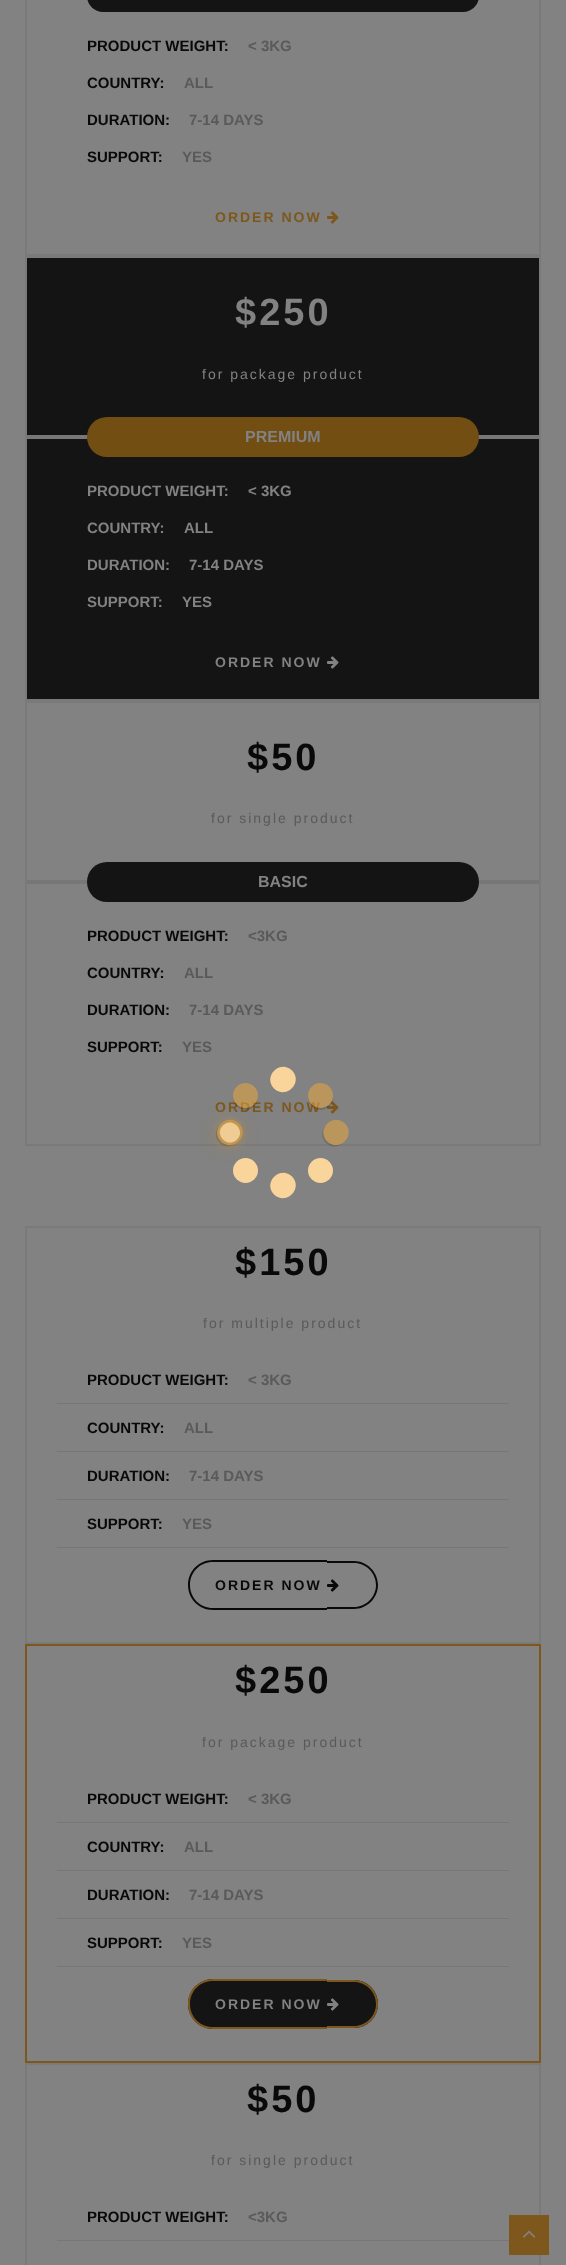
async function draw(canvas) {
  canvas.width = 566
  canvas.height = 2265
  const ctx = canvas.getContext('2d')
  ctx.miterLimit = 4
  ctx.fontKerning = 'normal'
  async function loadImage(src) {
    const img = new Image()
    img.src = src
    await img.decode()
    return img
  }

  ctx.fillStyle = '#828282'
  ctx.fillRect(0, 0, 566, 2265)
  ctx.strokeStyle = '#7a7a7a'
  ctx.lineWidth = 2
  ctx.strokeRect(26, -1, 514, 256)
  ctx.fillStyle = '#141414'
  ctx.beginPath()
  ctx.roundRect(87, -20, 392, 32, 20)
  ctx.fill()
  ctx.font = 'bold 15px Liberation Sans'
  ctx.fillStyle = '#090909'
  ctx.fillText('PRODUCT WEIGHT:', 87, 51)
  ctx.fillStyle = '#5a5a5a'
  ctx.fillText('< 3KG', 248, 51)
  ctx.fillStyle = '#090909'
  ctx.fillText('COUNTRY:', 87, 88)
  ctx.fillStyle = '#5a5a5a'
  ctx.fillText('ALL', 184, 88)
  ctx.fillStyle = '#090909'
  ctx.fillText('DURATION:', 87, 125)
  ctx.fillStyle = '#5a5a5a'
  ctx.fillText('7-14 DAYS', 189, 125)
  ctx.fillStyle = '#090909'
  ctx.fillText('SUPPORT:', 87, 162)
  ctx.fillStyle = '#5a5a5a'
  ctx.fillText('YES', 182, 162)
  ctx.letterSpacing = '2px'
  ctx.font = 'bold 14px Liberation Sans'
  ctx.fillStyle = '#7d571c'
  ctx.fillText('ORDER NOW', 215, 222)
  ctx.drawImage(await loadImage('image0.png'), 327, 211, 12, 13)
  ctx.fillStyle = '#141414'
  ctx.beginPath()
  ctx.rect(26, 257, 514, 443)
  ctx.fill()
  ctx.stroke()
  ctx.letterSpacing = '3px'
  ctx.font = 'bold 38px Liberation Sans'
  ctx.fillStyle = '#828282'
  ctx.fillText('$250', 235, 325)
  ctx.letterSpacing = '2px'
  ctx.font = '14px Liberation Sans'
  ctx.fillText('for package product', 202, 379)
  ctx.fillStyle = '#777'
  ctx.fillRect(27, 435, 512, 4)
  ctx.fillStyle = '#724e13'
  ctx.beginPath()
  ctx.roundRect(87, 417, 392, 40, 20)
  ctx.fill()
  ctx.letterSpacing = '0px'
  ctx.font = 'bold 16px Liberation Sans'
  ctx.fillStyle = '#828282'
  ctx.fillText('PREMIUM', 245, 442)
  ctx.font = 'bold 15px Liberation Sans'
  ctx.fillText('PRODUCT WEIGHT:', 87, 496)
  ctx.fillText('< 3KG', 248, 496)
  ctx.fillText('COUNTRY:', 87, 533)
  ctx.fillText('ALL', 184, 533)
  ctx.fillText('DURATION:', 87, 570)
  ctx.fillText('7-14 DAYS', 189, 570)
  ctx.fillText('SUPPORT:', 87, 607)
  ctx.fillText('YES', 182, 607)
  ctx.letterSpacing = '2px'
  ctx.font = 'bold 14px Liberation Sans'
  ctx.fillText('ORDER NOW', 215, 667)
  ctx.drawImage(await loadImage('image1.png'), 327, 656, 12, 13)
  ctx.strokeRect(26, 702, 514, 443)
  ctx.letterSpacing = '3px'
  ctx.font = 'bold 38px Liberation Sans'
  ctx.fillStyle = '#090909'
  ctx.fillText('$50', 247, 770)
  ctx.letterSpacing = '2px'
  ctx.font = '14px Liberation Sans'
  ctx.fillStyle = '#5a5a5a'
  ctx.fillText('for single product', 211, 823)
  ctx.fillStyle = '#777'
  ctx.fillRect(27, 880, 512, 4)
  ctx.fillStyle = '#141414'
  ctx.beginPath()
  ctx.roundRect(87, 862, 392, 40, 20)
  ctx.fill()
  ctx.letterSpacing = '0px'
  ctx.font = 'bold 16px Liberation Sans'
  ctx.fillStyle = '#828282'
  ctx.fillText('BASIC', 258, 887)
  ctx.font = 'bold 15px Liberation Sans'
  ctx.fillStyle = '#090909'
  ctx.fillText('PRODUCT WEIGHT:', 87, 941)
  ctx.fillStyle = '#5a5a5a'
  ctx.fillText('<3KG', 248, 941)
  ctx.fillStyle = '#090909'
  ctx.fillText('COUNTRY:', 87, 978)
  ctx.fillStyle = '#5a5a5a'
  ctx.fillText('ALL', 184, 978)
  ctx.fillStyle = '#090909'
  ctx.fillText('DURATION:', 87, 1015)
  ctx.fillStyle = '#5a5a5a'
  ctx.fillText('7-14 DAYS', 189, 1015)
  ctx.fillStyle = '#090909'
  ctx.fillText('SUPPORT:', 87, 1052)
  ctx.fillStyle = '#5a5a5a'
  ctx.fillText('YES', 182, 1052)
  ctx.letterSpacing = '2px'
  ctx.font = 'bold 14px Liberation Sans'
  ctx.fillStyle = '#7d571c'
  ctx.fillText('ORDER NOW', 215, 1112)
  ctx.drawImage(await loadImage('image0.png'), 327, 1101, 12, 13)
  ctx.strokeRect(26, 1227, 514, 416)
  ctx.letterSpacing = '3px'
  ctx.font = 'bold 38px Liberation Sans'
  ctx.fillStyle = '#090909'
  ctx.fillText('$150', 235, 1275)
  ctx.letterSpacing = '2px'
  ctx.font = '14px Liberation Sans'
  ctx.fillStyle = '#5a5a5a'
  ctx.fillText('for multiple product', 203, 1328)
  ctx.fillStyle = '#777'
  ctx.fillRect(57, 1403, 452, 1)
  ctx.letterSpacing = '0px'
  ctx.font = 'bold 15px Liberation Sans'
  ctx.fillStyle = '#090909'
  ctx.fillText('PRODUCT WEIGHT:', 87, 1385)
  ctx.fillStyle = '#5a5a5a'
  ctx.fillText('< 3KG', 248, 1385)
  ctx.fillStyle = '#777'
  ctx.fillRect(57, 1451, 452, 1)
  ctx.fillStyle = '#090909'
  ctx.fillText('COUNTRY:', 87, 1433)
  ctx.fillStyle = '#5a5a5a'
  ctx.fillText('ALL', 184, 1433)
  ctx.fillStyle = '#777'
  ctx.fillRect(57, 1499, 452, 1)
  ctx.fillStyle = '#090909'
  ctx.fillText('DURATION:', 87, 1481)
  ctx.fillStyle = '#5a5a5a'
  ctx.fillText('7-14 DAYS', 189, 1481)
  ctx.fillStyle = '#777'
  ctx.fillRect(57, 1547, 452, 1)
  ctx.fillStyle = '#090909'
  ctx.fillText('SUPPORT:', 87, 1529)
  ctx.fillStyle = '#5a5a5a'
  ctx.fillText('YES', 182, 1529)
  ctx.fillStyle = '#090909'
  ctx.beginPath()
  ctx.moveTo(213, 1560)
  ctx.lineTo(327, 1560)
  ctx.lineTo(327, 1610)
  ctx.lineTo(213, 1610)
  ctx.bezierCurveTo(199, 1610, 188, 1599, 188, 1585)
  ctx.bezierCurveTo(188, 1571, 199, 1560, 213, 1560)
  ctx.closePath()
  ctx.moveTo(213, 1562)
  ctx.lineTo(327, 1562)
  ctx.lineTo(327, 1608)
  ctx.lineTo(213, 1608)
  ctx.bezierCurveTo(200, 1608, 190, 1598, 190, 1585)
  ctx.bezierCurveTo(190, 1572, 200, 1562, 213, 1562)
  ctx.closePath()
  ctx.fill('evenodd')
  ctx.beginPath()
  ctx.moveTo(327, 1561)
  ctx.lineTo(354, 1561)
  ctx.bezierCurveTo(367, 1561, 378, 1572, 378, 1585)
  ctx.bezierCurveTo(378, 1598, 367, 1609, 354, 1609)
  ctx.lineTo(327, 1609)
  ctx.closePath()
  ctx.moveTo(327, 1563)
  ctx.lineTo(354, 1563)
  ctx.bezierCurveTo(366, 1563, 376, 1573, 376, 1585)
  ctx.bezierCurveTo(376, 1597, 366, 1607, 354, 1607)
  ctx.lineTo(327, 1607)
  ctx.closePath()
  ctx.fill('evenodd')
  ctx.letterSpacing = '2px'
  ctx.font = 'bold 14px Liberation Sans'
  ctx.fillText('ORDER NOW', 215, 1590)
  ctx.drawImage(await loadImage('image2.png'), 327, 1579, 12, 13)
  ctx.strokeStyle = '#7d571c'
  ctx.strokeRect(26, 1645, 514, 417)
  ctx.letterSpacing = '3px'
  ctx.font = 'bold 38px Liberation Sans'
  ctx.fillText('$250', 235, 1693)
  ctx.letterSpacing = '2px'
  ctx.font = '14px Liberation Sans'
  ctx.fillStyle = '#5a5a5a'
  ctx.fillText('for package product', 202, 1747)
  ctx.fillStyle = '#777'
  ctx.fillRect(57, 1822, 452, 1)
  ctx.letterSpacing = '0px'
  ctx.font = 'bold 15px Liberation Sans'
  ctx.fillStyle = '#090909'
  ctx.fillText('PRODUCT WEIGHT:', 87, 1804)
  ctx.fillStyle = '#5a5a5a'
  ctx.fillText('< 3KG', 248, 1804)
  ctx.fillStyle = '#777'
  ctx.fillRect(57, 1870, 452, 1)
  ctx.fillStyle = '#090909'
  ctx.fillText('COUNTRY:', 87, 1852)
  ctx.fillStyle = '#5a5a5a'
  ctx.fillText('ALL', 184, 1852)
  ctx.fillStyle = '#777'
  ctx.fillRect(57, 1918, 452, 1)
  ctx.fillStyle = '#090909'
  ctx.fillText('DURATION:', 87, 1900)
  ctx.fillStyle = '#5a5a5a'
  ctx.fillText('7-14 DAYS', 189, 1900)
  ctx.fillStyle = '#777'
  ctx.fillRect(57, 1966, 452, 1)
  ctx.fillStyle = '#090909'
  ctx.fillText('SUPPORT:', 87, 1948)
  ctx.fillStyle = '#5a5a5a'
  ctx.fillText('YES', 182, 1948)
  ctx.fillStyle = '#141414'
  ctx.beginPath()
  ctx.roundRect(188, 1979, 139, 50, [25, 0, 0, 25])
  ctx.fill()
  ctx.fillStyle = '#7d571c'
  ctx.beginPath()
  ctx.moveTo(213, 1979)
  ctx.lineTo(327, 1979)
  ctx.lineTo(327, 2029)
  ctx.lineTo(213, 2029)
  ctx.bezierCurveTo(199, 2029, 188, 2018, 188, 2004)
  ctx.bezierCurveTo(188, 1990, 199, 1979, 213, 1979)
  ctx.closePath()
  ctx.moveTo(213, 1981)
  ctx.lineTo(327, 1981)
  ctx.lineTo(327, 2027)
  ctx.lineTo(213, 2027)
  ctx.bezierCurveTo(200, 2027, 190, 2017, 190, 2004)
  ctx.bezierCurveTo(190, 1991, 200, 1981, 213, 1981)
  ctx.closePath()
  ctx.fill('evenodd')
  ctx.fillStyle = '#141414'
  ctx.beginPath()
  ctx.roundRect(327, 1980, 51, 48, [0, 24, 24, 0])
  ctx.fill()
  ctx.fillStyle = '#7d571c'
  ctx.beginPath()
  ctx.moveTo(327, 1980)
  ctx.lineTo(354, 1980)
  ctx.bezierCurveTo(367, 1980, 378, 1991, 378, 2004)
  ctx.bezierCurveTo(378, 2017, 367, 2028, 354, 2028)
  ctx.lineTo(327, 2028)
  ctx.closePath()
  ctx.moveTo(327, 1982)
  ctx.lineTo(354, 1982)
  ctx.bezierCurveTo(366, 1982, 376, 1992, 376, 2004)
  ctx.bezierCurveTo(376, 2016, 366, 2026, 354, 2026)
  ctx.lineTo(327, 2026)
  ctx.closePath()
  ctx.fill('evenodd')
  ctx.letterSpacing = '2px'
  ctx.font = 'bold 14px Liberation Sans'
  ctx.fillStyle = '#828282'
  ctx.fillText('ORDER NOW', 215, 2009)
  ctx.drawImage(await loadImage('image1.png'), 327, 1998, 12, 13)
  ctx.strokeStyle = '#7a7a7a'
  ctx.strokeRect(26, 2064, 514, 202)
  ctx.letterSpacing = '3px'
  ctx.font = 'bold 38px Liberation Sans'
  ctx.fillStyle = '#090909'
  ctx.fillText('$50', 247, 2112)
  ctx.letterSpacing = '2px'
  ctx.font = '14px Liberation Sans'
  ctx.fillStyle = '#5a5a5a'
  ctx.fillText('for single product', 211, 2165)
  ctx.fillStyle = '#777'
  ctx.fillRect(57, 2240, 452, 1)
  ctx.letterSpacing = '0px'
  ctx.font = 'bold 15px Liberation Sans'
  ctx.fillStyle = '#090909'
  ctx.fillText('PRODUCT WEIGHT:', 87, 2222)
  ctx.fillStyle = '#5a5a5a'
  ctx.fillText('<3KG', 248, 2222)
  ctx.fillStyle = '#7d571b'
  ctx.fillRect(509, 2215, 40, 40)
  ctx.drawImage(await loadImage('image3.png'), 523, 2230, 13, 8)
  ctx.fillStyle = '#fad59b'
  ctx.beginPath()
  ctx.moveTo(292, 1070.5)
  ctx.bezierCurveTo(303.5, 1082.5, 286, 1100, 274, 1088.5)
  ctx.bezierCurveTo(262.5, 1076.5, 280, 1059, 292, 1070.5)
  ctx.closePath()
  ctx.fill()
  ctx.fillStyle = '#00000026'
  ctx.beginPath()
  ctx.moveTo(237.5, 1142.5)
  ctx.bezierCurveTo(226, 1151, 211.5, 1137, 219.5, 1125.5)
  ctx.bezierCurveTo(208, 1137.5, 225.5, 1154.5, 237.5, 1142.5)
  ctx.closePath()
  ctx.fill()
  ctx.fillStyle = '#f5ab357d'
  ctx.beginPath()
  ctx.moveTo(239, 1123.5)
  ctx.bezierCurveTo(250.5, 1135.5, 233, 1153, 221, 1141.5)
  ctx.bezierCurveTo(209.5, 1129.5, 227, 1112, 239, 1123.5)
  ctx.closePath()
  ctx.fill()
  ctx.fillStyle = '#00000026'
  ctx.beginPath()
  ctx.moveTo(343.5, 1142.5)
  ctx.bezierCurveTo(332, 1151, 318, 1137, 326, 1125.5)
  ctx.bezierCurveTo(314.5, 1137, 332, 1154.5, 343.5, 1142.5)
  ctx.closePath()
  ctx.fill()
  ctx.fillStyle = '#f5ab357d'
  ctx.beginPath()
  ctx.moveTo(345, 1123.5)
  ctx.bezierCurveTo(356.5, 1135.5, 339, 1153, 327, 1141.5)
  ctx.bezierCurveTo(315.5, 1129.5, 333, 1112, 345, 1123.5)
  ctx.closePath()
  ctx.fill()
  ctx.fillStyle = '#fad59b'
  ctx.beginPath()
  ctx.moveTo(292, 1176.5)
  ctx.bezierCurveTo(303.5, 1188.5, 286, 1206, 274, 1194.5)
  ctx.bezierCurveTo(262.5, 1182.5, 280, 1165, 292, 1176.5)
  ctx.closePath()
  ctx.fill()
  ctx.fillStyle = '#00000026'
  ctx.beginPath()
  ctx.moveTo(233, 1096.5)
  ctx.bezierCurveTo(232, 1109, 248.5, 1115, 256, 1104.5)
  ctx.bezierCurveTo(257.5, 1102, 258, 1099.5, 258, 1096.5)
  ctx.bezierCurveTo(257, 1111.5, 234, 1111.5, 233, 1096.5)
  ctx.closePath()
  ctx.fill()
  ctx.fillStyle = '#f5ab357d'
  ctx.beginPath()
  ctx.arc(245.5, 1095.5, 12.5, 0, 2 * Math.PI)
  ctx.fill()
  ctx.fillStyle = '#fad59b'
  ctx.beginPath()
  ctx.arc(245.5, 1170.5, 12.5, 0, 2 * Math.PI)
  ctx.fill()
  ctx.fillStyle = '#df98267d'
  ctx.filter = 'blur(10px)'
  ctx.beginPath()
  ctx.roundRect(220, 1123, 20, 20, 10)
  ctx.fill()
  ctx.filter = 'none'
  ctx.filter = 'blur(5px)'
  ctx.beginPath()
  ctx.roundRect(220, 1123, 20, 20, 10)
  ctx.fill()
  ctx.filter = 'none'
  ctx.fillStyle = '#efcc94'
  ctx.beginPath()
  ctx.moveTo(223, 1125.5)
  ctx.bezierCurveTo(232, 1116, 246.5, 1130.5, 237, 1139.5)
  ctx.bezierCurveTo(228, 1149, 213.5, 1134.5, 223, 1125.5)
  ctx.closePath()
  ctx.fill()
  ctx.fillStyle = '#00000026'
  ctx.beginPath()
  ctx.moveTo(308, 1096.5)
  ctx.bezierCurveTo(308, 1099.5, 308.5, 1102, 310, 1104.5)
  ctx.bezierCurveTo(317.5, 1115, 334, 1109, 333, 1096.5)
  ctx.bezierCurveTo(332, 1111.5, 309, 1111.5, 308, 1096.5)
  ctx.closePath()
  ctx.fill()
  ctx.fillStyle = '#f5ab357d'
  ctx.beginPath()
  ctx.arc(320.5, 1095.5, 12.5, 0, 2 * Math.PI)
  ctx.fill()
  ctx.fillStyle = '#fad59b'
  ctx.beginPath()
  ctx.arc(320.5, 1170.5, 12.5, 0, 2 * Math.PI)
  ctx.fill()
}

draw(document.querySelector('canvas'))
